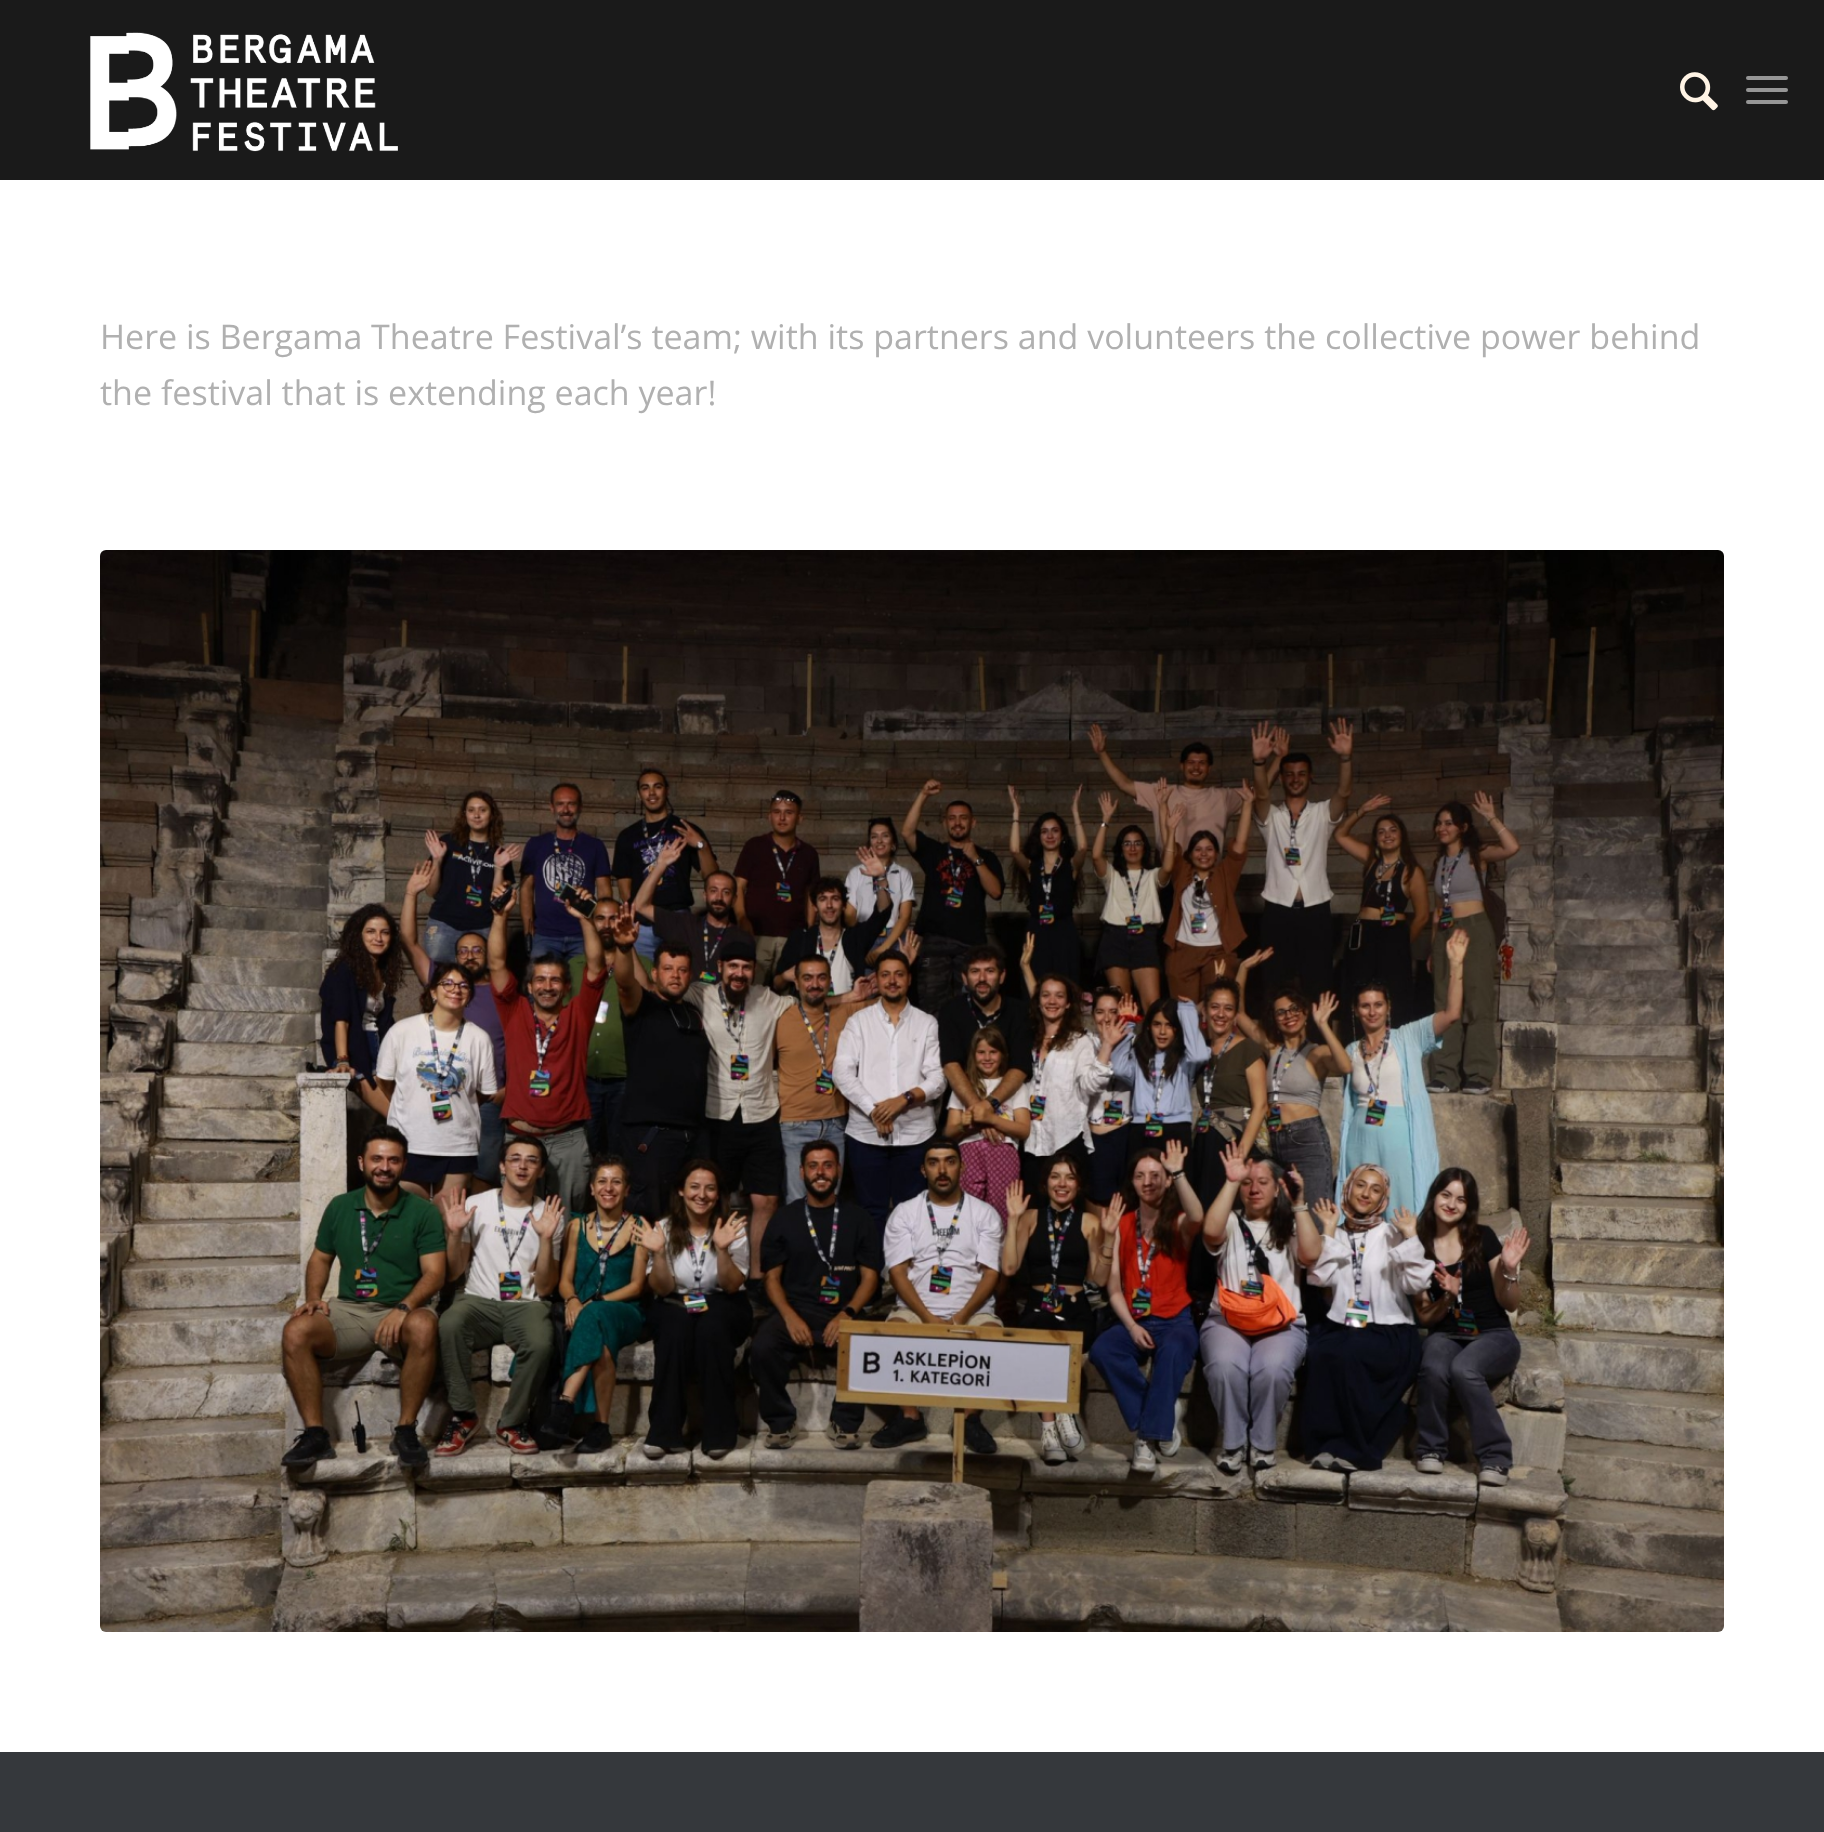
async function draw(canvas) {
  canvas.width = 1824
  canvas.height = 1832
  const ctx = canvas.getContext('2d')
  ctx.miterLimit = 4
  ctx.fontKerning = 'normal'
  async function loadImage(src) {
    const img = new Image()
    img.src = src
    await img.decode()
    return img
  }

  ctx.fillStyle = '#fff'
  ctx.fillRect(0, 0, 1824, 1832)
  ctx.fillStyle = '#1a1a1a'
  ctx.fillRect(0, 0, 1824, 180)
  ctx.drawImage(await loadImage('image0.png'), 90, 32, 308, 120)
  ctx.drawImage(await loadImage('image1.png'), 1680, 72, 38, 39)
  ctx.fillStyle = '#969696'
  ctx.beginPath()
  ctx.roundRect(1746, 88, 42, 4, 2)
  ctx.fill()
  ctx.beginPath()
  ctx.roundRect(1746, 76, 42, 4, 2)
  ctx.fill()
  ctx.beginPath()
  ctx.roundRect(1746, 100, 42, 4, 2)
  ctx.fill()
  ctx.font = '34px Open Sans'
  ctx.fillStyle = '#b0b0b0'
  ctx.fillText('Here is Bergama Theatre Festival’s team; with its partners and volunteers the collective power behind', 100, 349)
  ctx.fillText('the festival that is extending each year!', 100, 405)
  ctx.drawImage(await loadImage('image2.png'), 100, 550, 1624, 1082)
  ctx.fillStyle = '#35383c'
  ctx.fillRect(0, 1752, 1824, 80)
}

draw(document.querySelector('canvas'))
